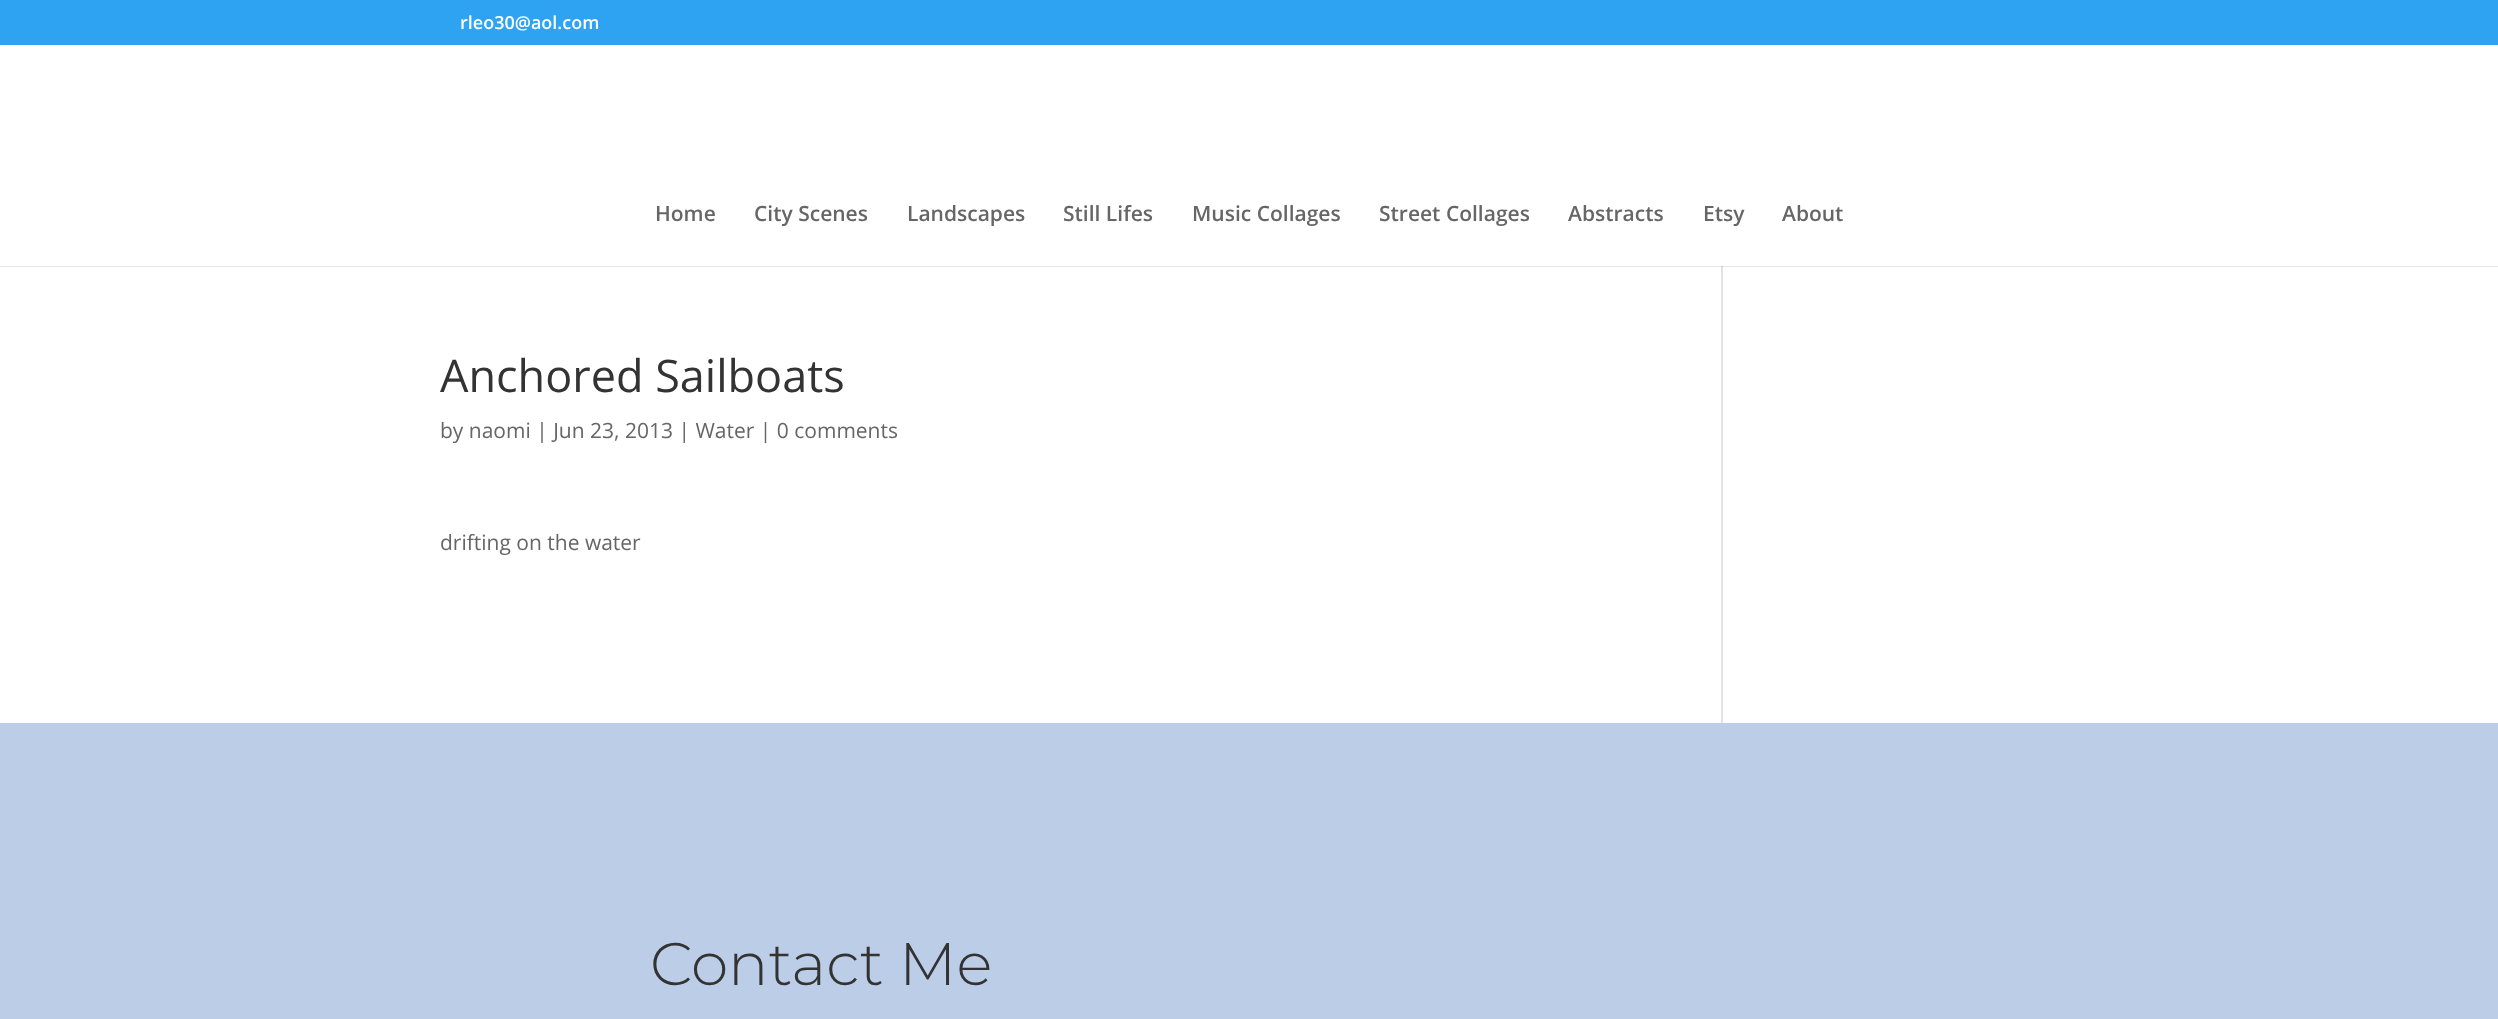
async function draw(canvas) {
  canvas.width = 2498
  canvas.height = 1019
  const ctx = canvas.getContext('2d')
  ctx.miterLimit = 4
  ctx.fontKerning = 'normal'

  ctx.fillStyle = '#fff'
  ctx.fillRect(0, 0, 2498, 1019)
  ctx.fillStyle = '#e6e6e6'
  ctx.fillRect(0, 266, 2498, 1)
  ctx.fillStyle = '#2ea3f2'
  ctx.fillRect(0, 0, 2498, 45)
  ctx.font = '600 18px Open Sans'
  ctx.fillStyle = '#fff'
  ctx.fillText('rleo30@aol.com', 460, 29)
  ctx.font = '600 21px Open Sans'
  ctx.fillStyle = '#666'
  ctx.fillText('Home', 655, 221)
  ctx.fillText('City Scenes', 754, 221)
  ctx.fillText('Landscapes', 907, 221)
  ctx.fillText('Still Lifes', 1063, 221)
  ctx.fillText('Music Collages', 1192, 221)
  ctx.fillText('Street Collages', 1379, 221)
  ctx.fillText('Abstracts', 1568, 221)
  ctx.fillText('Etsy', 1703, 221)
  ctx.fillText('About', 1782, 221)
  ctx.font = '45px Open Sans'
  ctx.fillStyle = '#333'
  ctx.fillText('Anchored Sailboats', 440, 392)
  ctx.font = '21px Open Sans'
  ctx.fillStyle = '#666'
  ctx.fillText('by naomi | Jun 23, 2013 | Water | 0 comments', 440, 438)
  ctx.fillText('drifting on the water', 440, 550)
  ctx.fillStyle = '#e2e2e2'
  ctx.fillRect(1721, 266, 2, 457)
  ctx.fillStyle = '#cbcbcb'
  ctx.fillRect(1721, 266, 2, 1)
  ctx.fillStyle = '#bbcde7'
  ctx.fillRect(0, 723, 2498, 296)
  ctx.font = '100 60px Montserrat'
  ctx.fillStyle = '#333'
  ctx.fillText('Contact Me', 650, 985)
}

draw(document.querySelector('canvas'))
